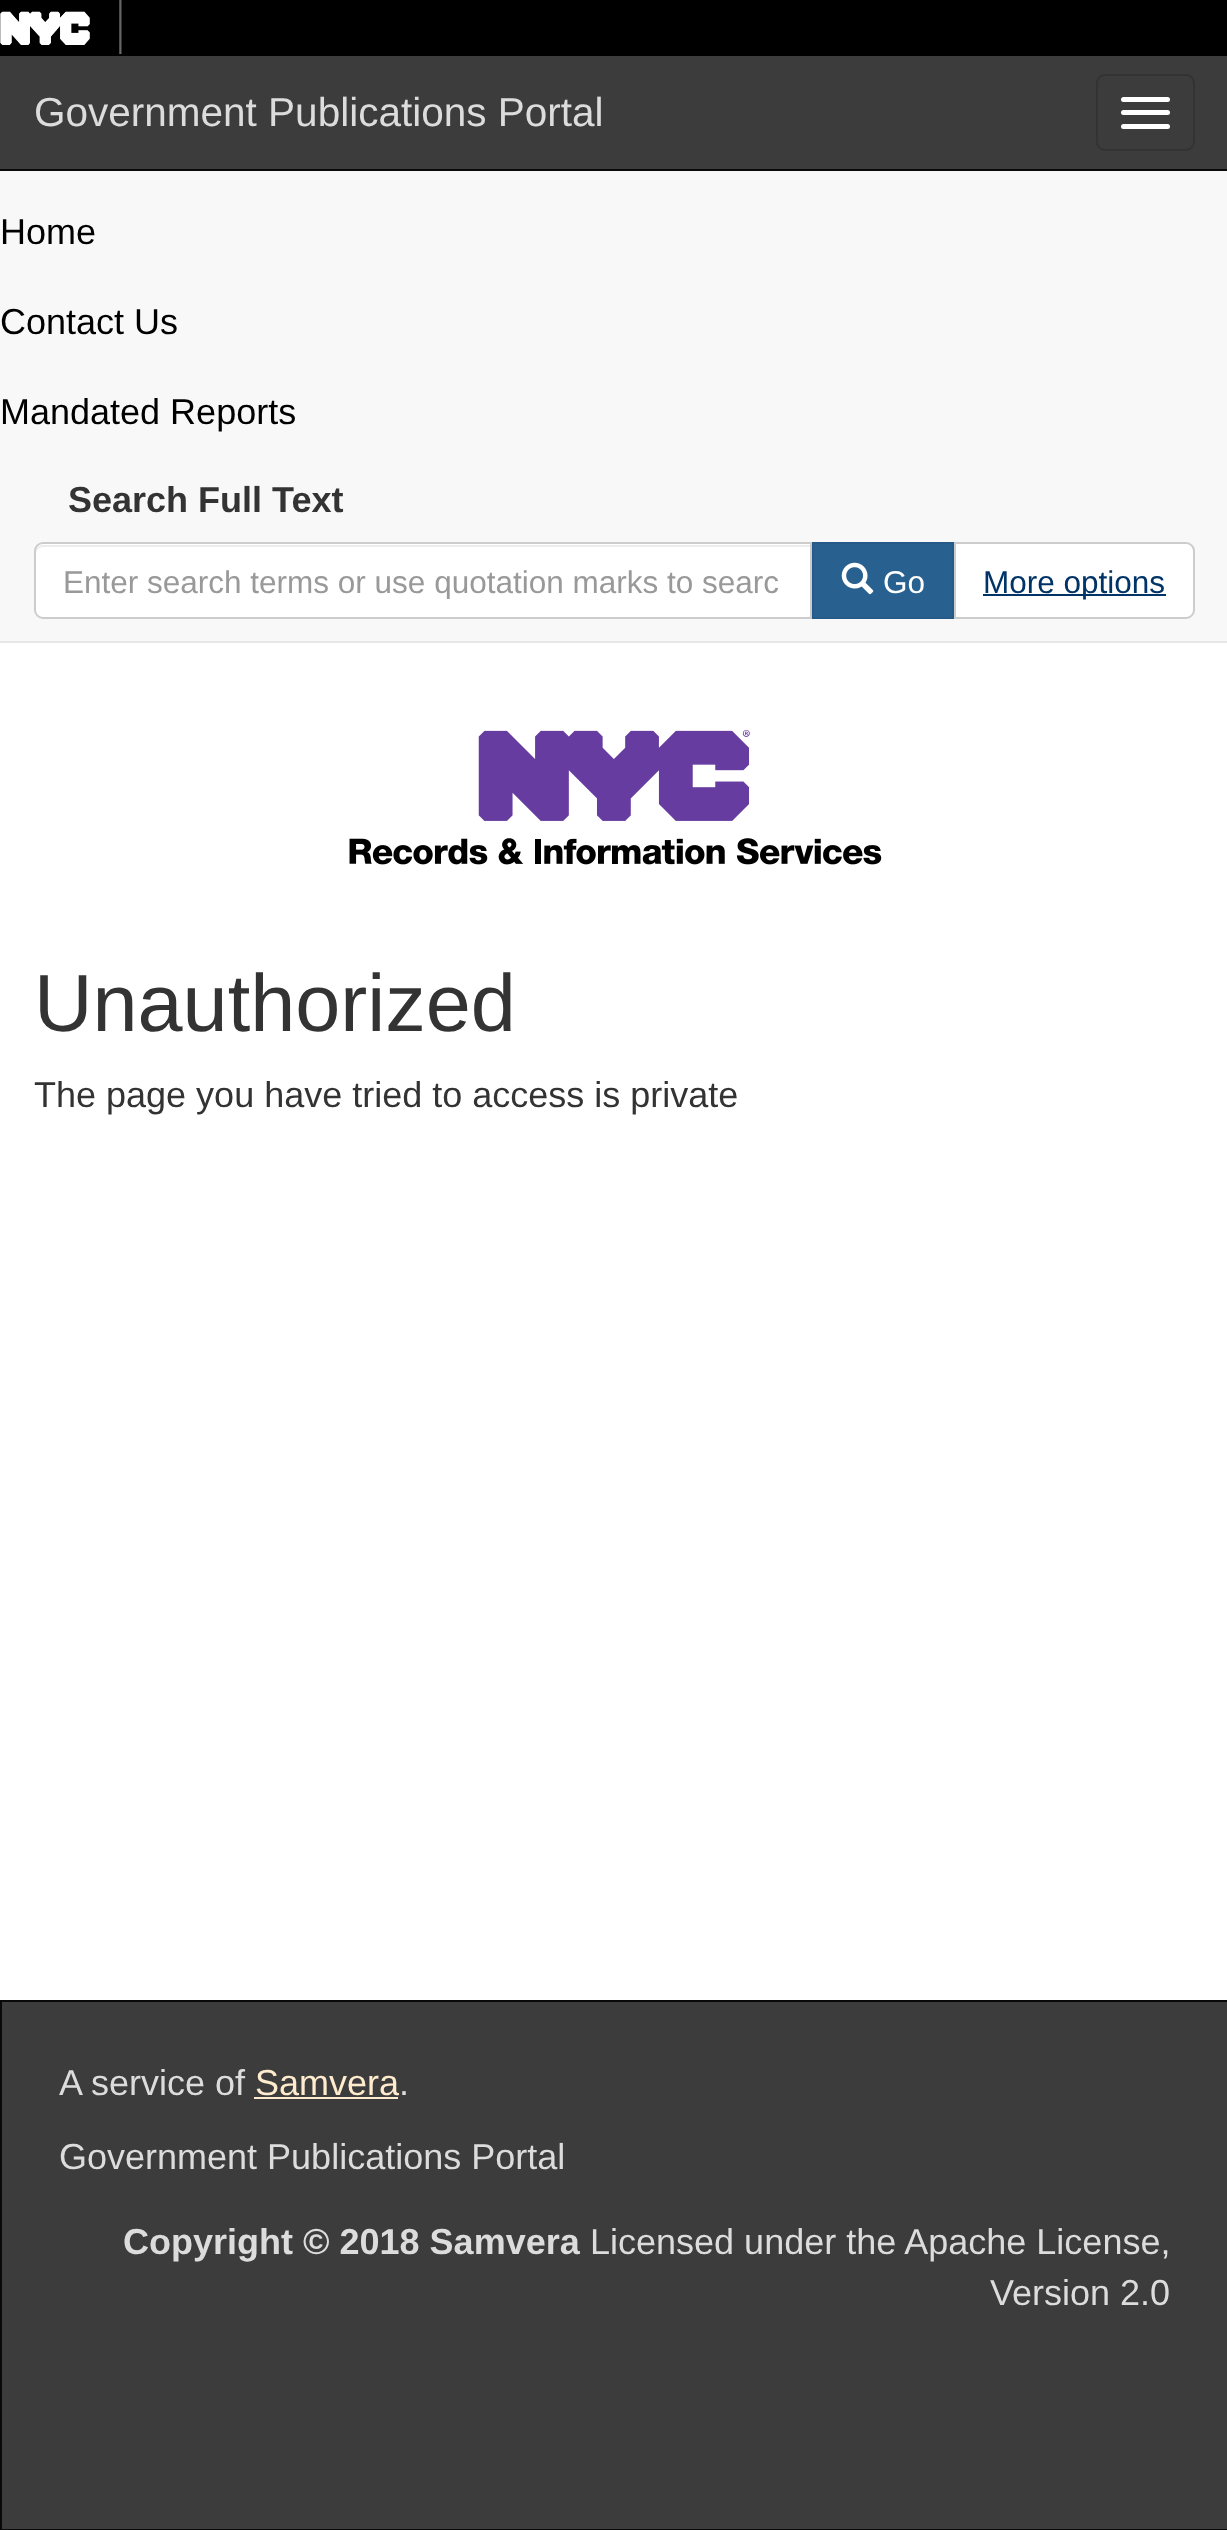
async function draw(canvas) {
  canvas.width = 1227
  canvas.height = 2530
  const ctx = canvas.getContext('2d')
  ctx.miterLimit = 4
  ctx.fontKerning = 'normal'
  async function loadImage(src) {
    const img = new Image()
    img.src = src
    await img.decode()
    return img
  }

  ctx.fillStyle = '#fff'
  ctx.fillRect(0, 0, 1227, 2530)
  ctx.fillStyle = '#000'
  ctx.fillRect(0, 0, 1227, 56)
  ctx.drawImage(await loadImage('image0.png'), 0, 11, 90, 34)
  ctx.drawImage(await loadImage('image1.png'), 119, 0, 3, 54)
  ctx.fillStyle = '#3c3c3c'
  ctx.fillRect(0, 56, 1227, 113)
  ctx.fillStyle = '#090909'
  ctx.fillRect(0, 169, 1227, 2)
  ctx.font = '40.5px Liberation Sans'
  ctx.fillStyle = '#dcdcdc'
  ctx.fillText('Government Publications Portal', 34, 126)
  ctx.beginPath()
  ctx.roundRect(1097, 75, 97, 75, 8)
  ctx.strokeStyle = '#333'
  ctx.lineWidth = 2
  ctx.stroke()
  ctx.fillStyle = '#fff'
  ctx.beginPath()
  ctx.roundRect(1121, 97, 49, 5, 2.5)
  ctx.fill()
  ctx.beginPath()
  ctx.roundRect(1121, 110, 49, 5, 2.5)
  ctx.fill()
  ctx.beginPath()
  ctx.roundRect(1121, 124, 49, 5, 2.5)
  ctx.fill()
  ctx.fillStyle = '#f8f8f8'
  ctx.fillRect(0, 171, 1227, 470)
  ctx.fillStyle = '#e7e7e7'
  ctx.fillRect(0, 641, 1227, 2)
  ctx.font = '36px Liberation Sans'
  ctx.fillStyle = '#000'
  ctx.fillText('Home', 0, 244)
  ctx.fillText('Contact Us', 0, 334)
  ctx.fillText('Mandated Reports', 0, 424)
  ctx.font = 'bold 36px Liberation Sans'
  ctx.fillStyle = '#333'
  ctx.fillText('Search Full Text', 68, 512)
  ctx.fillStyle = '#fff'
  ctx.beginPath()
  ctx.roundRect(34, 542, 778, 77, [9, 0, 0, 9])
  ctx.fill()
  ctx.fillStyle = '#ececec'
  ctx.beginPath()
  ctx.moveTo(43, 547)
  ctx.lineTo(810, 547)
  ctx.lineTo(810, 545)
  ctx.lineTo(43, 545)
  ctx.bezierCurveTo(39, 545, 36, 548, 36, 552)
  ctx.lineTo(36, 554)
  ctx.bezierCurveTo(36, 550, 39, 547, 43, 547)
  ctx.closePath()
  ctx.fill()
  ctx.beginPath()
  ctx.roundRect(35, 543, 776, 75, [8, 0, 0, 8])
  ctx.strokeStyle = '#ccc'
  ctx.stroke()
  ctx.save()
  ctx.beginPath()
  ctx.rect(63, 563, 720, 36)
  ctx.clip()
  ctx.font = '31.5px Liberation Sans'
  ctx.fillStyle = '#999'
  ctx.fillText('Enter search terms or use quotation marks to searc', 63, 593)
  ctx.restore()
  ctx.fillStyle = '#286090'
  ctx.beginPath()
  ctx.rect(813, 543, 140, 75)
  ctx.fill()
  ctx.strokeStyle = '#265b89'
  ctx.stroke()
  ctx.drawImage(await loadImage('image2.png'), 841, 562, 33, 33)
  ctx.font = '31.5px Liberation Sans'
  ctx.fillStyle = '#fff'
  ctx.fillText('Go', 883, 593)
  ctx.beginPath()
  ctx.roundRect(955, 543, 239, 75, [0, 8, 8, 0])
  ctx.fill()
  ctx.strokeStyle = '#ccc'
  ctx.stroke()
  ctx.fillStyle = '#036'
  ctx.fillRect(983, 594, 183, 2)
  ctx.fillText('More options', 983, 593)
  ctx.drawImage(await loadImage('image3.png'), 349, 730, 533, 135)
  ctx.font = '81px Liberation Sans'
  ctx.fillStyle = '#333'
  ctx.fillText('Unauthorized', 34, 1031)
  ctx.font = '36px Liberation Sans'
  ctx.fillText('The page you have tried to access is private', 34, 1107)
  ctx.fillStyle = '#3c3c3c'
  ctx.beginPath()
  ctx.rect(1, 2001, 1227, 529)
  ctx.fill()
  ctx.strokeStyle = '#090909'
  ctx.stroke()
  ctx.fillStyle = '#dcdcdc'
  ctx.fillText('A service of', 59, 2095)
  ctx.fillStyle = '#ffebcd'
  ctx.fillText('Samvera', 255, 2095)
  ctx.fillRect(254, 2097, 144, 2)
  ctx.fillStyle = '#dcdcdc'
  ctx.fillText('.', 399, 2095)
  ctx.fillText('Government Publications Portal', 59, 2169)
  ctx.font = 'bold 36px Liberation Sans'
  ctx.fillText('Copyright © 2018 Samvera', 123, 2254)
  ctx.font = '36px Liberation Sans'
  ctx.fillText('Licensed under the Apache License,', 590, 2254)
  ctx.fillText('Version 2.0', 990, 2305)
}

draw(document.querySelector('canvas'))
